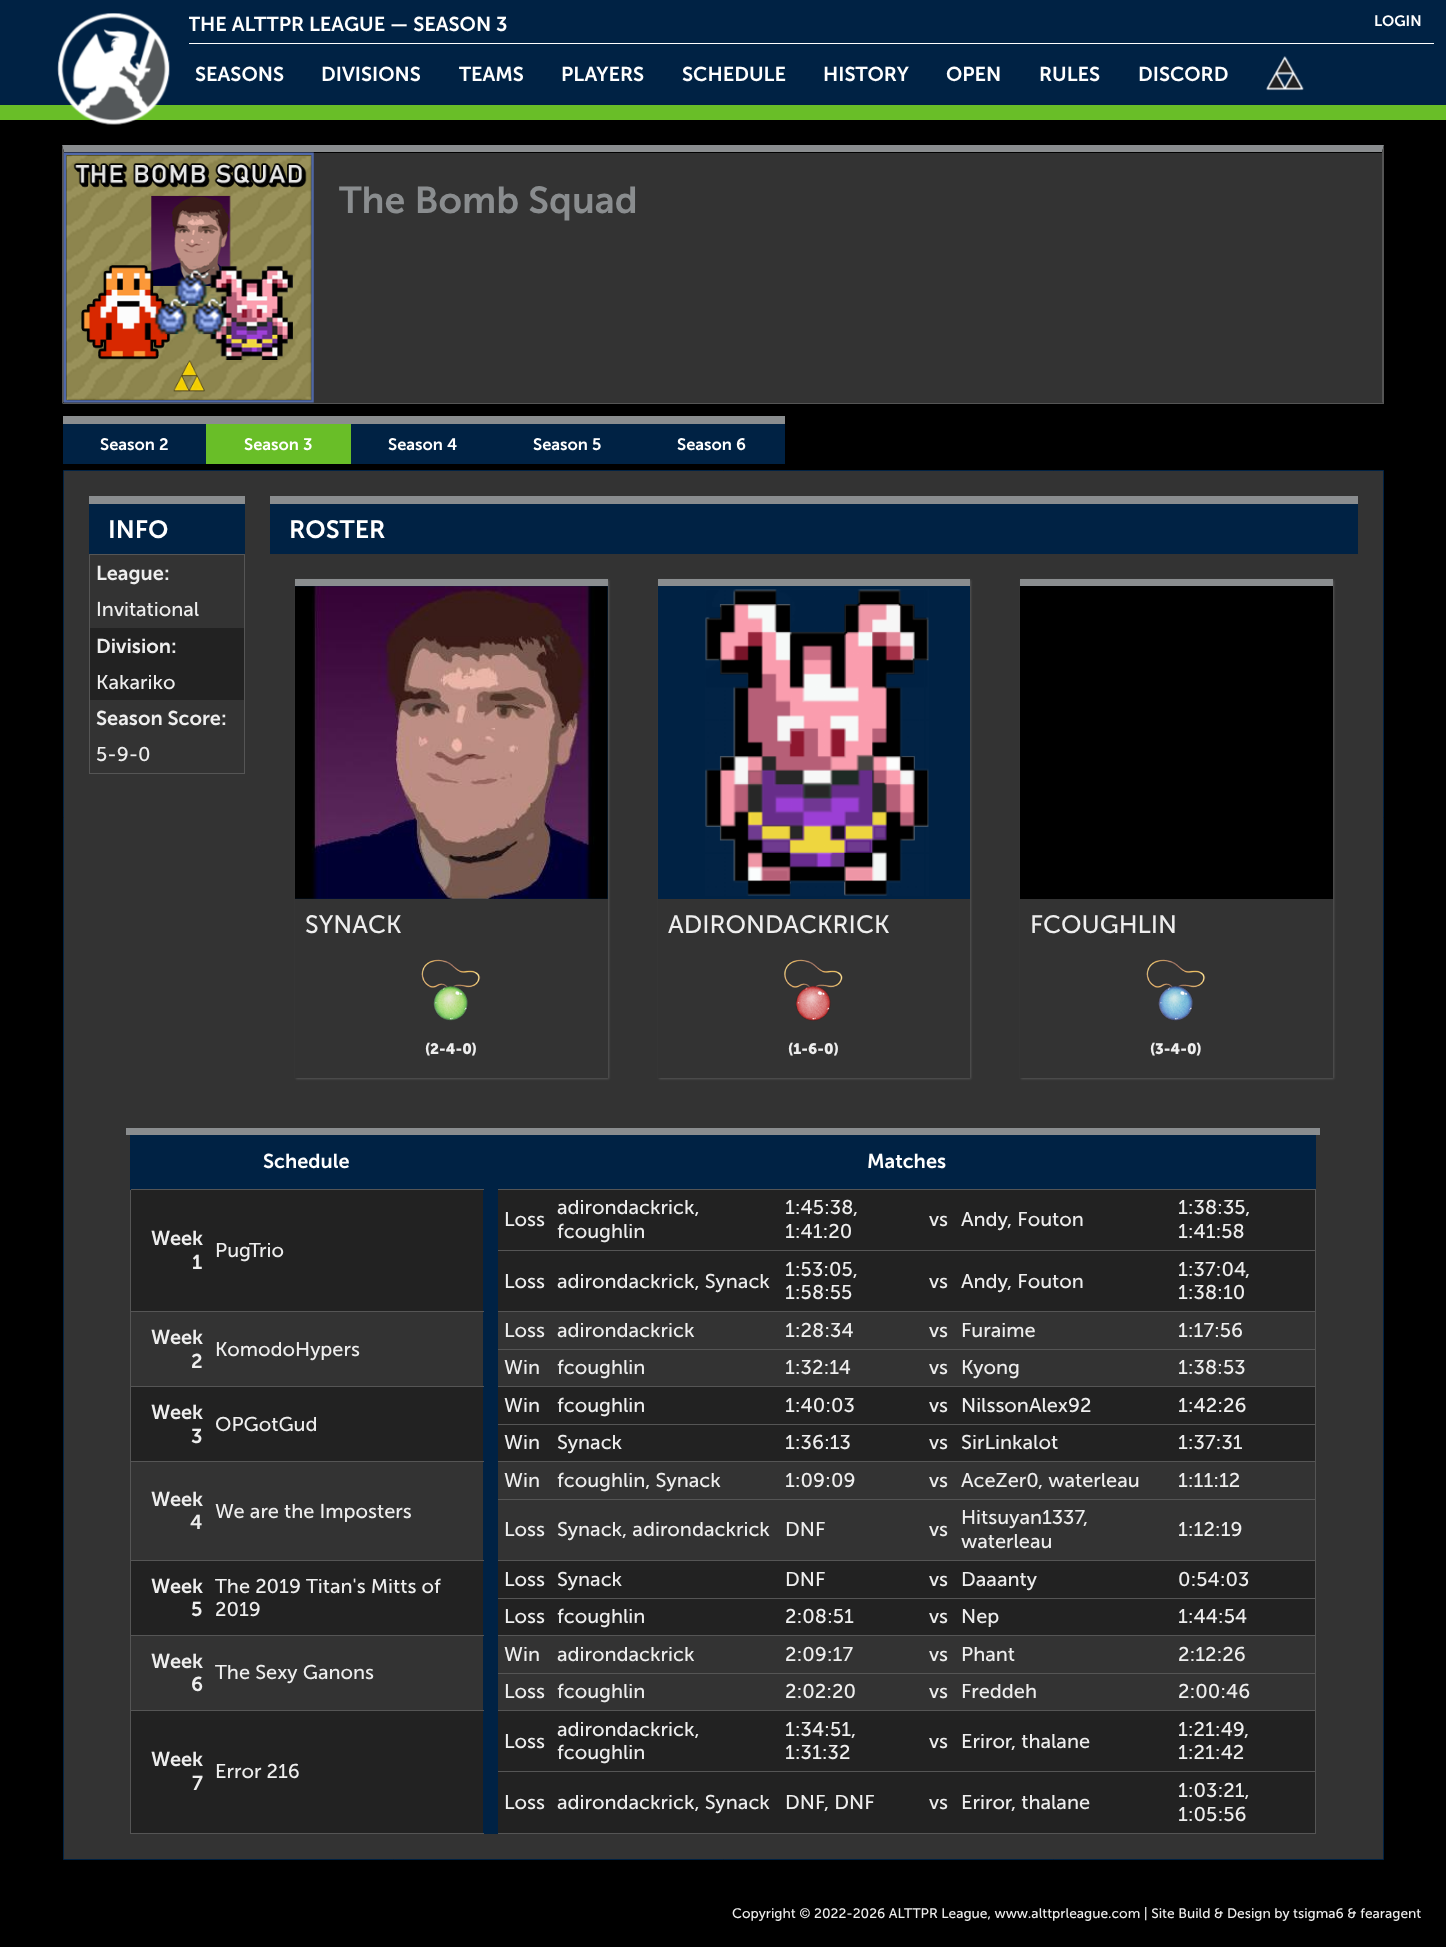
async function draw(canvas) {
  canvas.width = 1446
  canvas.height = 1947
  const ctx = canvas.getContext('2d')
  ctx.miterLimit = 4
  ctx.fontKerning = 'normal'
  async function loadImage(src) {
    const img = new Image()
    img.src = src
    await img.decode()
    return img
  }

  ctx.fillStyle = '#000'
  ctx.fillRect(0, 0, 1446, 1947)
  ctx.fillStyle = '#024'
  ctx.fillRect(0, 0, 1446, 105)
  ctx.fillStyle = '#69be28'
  ctx.fillRect(0, 105, 1446, 8)
  ctx.fillRect(0, 113, 1446, 7)
  ctx.drawImage(await loadImage('image0.png'), 57, 13, 113, 112)
  ctx.fillStyle = '#fff'
  ctx.fillRect(189, 43, 1245, 1)
  ctx.save()
  ctx.beginPath()
  ctx.rect(189, 13, 1172, 30)
  ctx.clip()
  ctx.font = '600 20px "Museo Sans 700"'
  ctx.fillText('THE ALTTPR LEAGUE — SEASON 3', 188, 31)
  ctx.restore()
  ctx.font = '600 15px "Museo Sans 700"'
  ctx.fillText('LOGIN', 1374, 26)
  ctx.font = '600 20px "Museo Sans 700"'
  ctx.fillText('SEASONS', 195, 81)
  ctx.fillText('DIVISIONS', 321, 81)
  ctx.fillText('TEAMS', 459, 81)
  ctx.fillText('PLAYERS', 561, 81)
  ctx.fillText('SCHEDULE', 682, 81)
  ctx.fillText('HISTORY', 823, 81)
  ctx.fillText('OPEN', 946, 81)
  ctx.fillText('RULES', 1039, 81)
  ctx.fillText('DISCORD', 1138, 81)
  ctx.drawImage(await loadImage('image1.png'), 1266, 56, 38, 35)
  ctx.fillStyle = '#333'
  ctx.fillRect(64, 153, 1319, 250)
  ctx.fillStyle = '#8a8d8f'
  ctx.beginPath()
  ctx.moveTo(62, 145)
  ctx.lineTo(1384, 145)
  ctx.lineTo(1382, 152)
  ctx.lineTo(64, 152)
  ctx.closePath()
  ctx.fill()
  ctx.fillStyle = '#555'
  ctx.beginPath()
  ctx.moveTo(1384, 145)
  ctx.lineTo(1384, 404)
  ctx.lineTo(1382, 402)
  ctx.lineTo(1382, 152)
  ctx.closePath()
  ctx.fill()
  ctx.fillRect(63, 403, 1321, 1)
  ctx.beginPath()
  ctx.moveTo(62, 404)
  ctx.lineTo(62, 145)
  ctx.lineTo(64, 152)
  ctx.lineTo(64, 402)
  ctx.closePath()
  ctx.fill()
  ctx.drawImage(await loadImage('image2.png'), 63, 152, 251, 251)
  ctx.font = '600 37.5px "Museo Sans 700"'
  ctx.fillStyle = '#8a8d8f'
  ctx.fillText('The Bomb Squad', 339, 213)
  ctx.fillStyle = '#024'
  ctx.fillRect(63, 424, 143, 40)
  ctx.fillStyle = '#8a8d8f'
  ctx.fillRect(63, 416, 722, 8)
  ctx.font = '600 16.5px "Museo Sans 700"'
  ctx.fillStyle = '#fff'
  ctx.fillText('Season 2', 100, 450)
  ctx.fillStyle = '#69be28'
  ctx.fillRect(206, 424, 145, 40)
  ctx.fillStyle = '#fff'
  ctx.fillText('Season 3', 244, 450)
  ctx.fillStyle = '#024'
  ctx.fillRect(351, 424, 434, 40)
  ctx.fillStyle = '#fff'
  ctx.fillText('Season 4', 388, 450)
  ctx.fillText('Season 5', 533, 450)
  ctx.fillText('Season 6', 677, 450)
  ctx.fillStyle = '#333'
  ctx.beginPath()
  ctx.rect(63.5, 470.5, 1320, 1389)
  ctx.fill()
  ctx.strokeStyle = '#024'
  ctx.stroke()
  ctx.fillStyle = '#024'
  ctx.fillRect(89, 504, 156, 50)
  ctx.fillStyle = '#8a8d8f'
  ctx.fillRect(89, 496, 156, 8)
  ctx.font = '600 25px "Museo Sans 700"'
  ctx.fillStyle = '#fff'
  ctx.fillText('INFO', 108, 538)
  ctx.strokeStyle = '#555'
  ctx.strokeRect(89.5, 554.5, 155, 219)
  ctx.font = '600 20px "Museo Sans 700"'
  ctx.fillStyle = '#eee'
  ctx.fillText('League:', 96, 580)
  ctx.font = '20px "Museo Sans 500"'
  ctx.fillText('Invitational', 96, 616)
  ctx.fillStyle = '#222'
  ctx.fillRect(90, 628, 154, 72)
  ctx.font = '600 20px "Museo Sans 700"'
  ctx.fillStyle = '#eee'
  ctx.fillText('Division:', 96, 653)
  ctx.font = '20px "Museo Sans 500"'
  ctx.fillText('Kakariko', 96, 689)
  ctx.font = '600 20px "Museo Sans 700"'
  ctx.fillText('Season Score:', 96, 725)
  ctx.font = '20px "Museo Sans 500"'
  ctx.fillText('5-9-0', 96, 761)
  ctx.fillStyle = '#024'
  ctx.fillRect(270, 504, 1088, 50)
  ctx.fillStyle = '#8a8d8f'
  ctx.fillRect(270, 496, 1088, 8)
  ctx.font = '600 25px "Museo Sans 700"'
  ctx.fillStyle = '#fff'
  ctx.fillText('ROSTER', 289, 538)
  ctx.fillStyle = '#555'
  ctx.filter = 'blur(1px)'
  ctx.beginPath()
  ctx.rect(296, 580, 313, 499)
  ctx.fill()
  ctx.filter = 'none'
  ctx.fillStyle = '#024'
  ctx.fillRect(295, 586, 313, 313)
  ctx.fillStyle = '#8a8d8f'
  ctx.fillRect(295, 579, 313, 7)
  ctx.drawImage(await loadImage('image3.png'), 295, 586, 313, 313)
  ctx.fillStyle = '#333'
  ctx.fillRect(295, 899, 313, 179)
  ctx.font = '25px "Museo Sans 500"'
  ctx.fillStyle = '#eee'
  ctx.fillText('SYNACK', 305, 933)
  ctx.drawImage(await loadImage('image4.png'), 421, 959, 60, 62)
  ctx.font = 'bold 15px "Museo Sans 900"'
  ctx.fillText('(2-4-0)', 425, 1054)
  ctx.fillStyle = '#555'
  ctx.filter = 'blur(1px)'
  ctx.beginPath()
  ctx.rect(659, 580, 312, 499)
  ctx.fill()
  ctx.filter = 'none'
  ctx.fillStyle = '#024'
  ctx.fillRect(658, 586, 312, 313)
  ctx.fillStyle = '#8a8d8f'
  ctx.fillRect(658, 579, 312, 7)
  ctx.drawImage(await loadImage('image5.png'), 705, 589, 224, 307)
  ctx.fillStyle = '#333'
  ctx.fillRect(658, 899, 312, 179)
  ctx.font = '25px "Museo Sans 500"'
  ctx.fillStyle = '#eee'
  ctx.fillText('ADIRONDACKRICK', 668, 933)
  ctx.drawImage(await loadImage('image6.png'), 784, 959, 59, 62)
  ctx.font = 'bold 15px "Museo Sans 900"'
  ctx.fillText('(1-6-0)', 788, 1054)
  ctx.fillStyle = '#555'
  ctx.filter = 'blur(1px)'
  ctx.beginPath()
  ctx.rect(1021, 580, 313, 499)
  ctx.fill()
  ctx.filter = 'none'
  ctx.fillStyle = '#8a8d8f'
  ctx.fillRect(1020, 579, 313, 7)
  ctx.fillStyle = '#000'
  ctx.fillRect(1020, 586, 313, 313)
  ctx.fillStyle = '#333'
  ctx.fillRect(1020, 899, 313, 179)
  ctx.font = '25px "Museo Sans 500"'
  ctx.fillStyle = '#eee'
  ctx.fillText('FCOUGHLIN', 1030, 933)
  ctx.drawImage(await loadImage('image7.png'), 1146, 959, 60, 62)
  ctx.font = 'bold 15px "Museo Sans 900"'
  ctx.fillText('(3-4-0)', 1150, 1054)
  ctx.fillStyle = '#024'
  ctx.fillRect(131, 1135, 1184, 54)
  ctx.fillStyle = '#555'
  ctx.fillRect(1315, 1189, 1, 645)
  ctx.fillStyle = '#024'
  ctx.fillRect(1315, 1131, 1, 59)
  ctx.fillStyle = '#222'
  ctx.fillRect(131, 1190, 1184, 121)
  ctx.fillStyle = '#024'
  ctx.fillRect(484, 1190, 14, 60)
  ctx.fillRect(484, 1251, 14, 60)
  ctx.fillRect(484, 1312, 14, 37)
  ctx.fillRect(484, 1350, 14, 36)
  ctx.fillStyle = '#222'
  ctx.fillRect(131, 1387, 1184, 74)
  ctx.fillStyle = '#024'
  ctx.fillRect(484, 1387, 14, 37)
  ctx.fillRect(484, 1425, 14, 36)
  ctx.fillRect(484, 1462, 14, 37)
  ctx.fillRect(484, 1500, 14, 60)
  ctx.fillStyle = '#222'
  ctx.fillRect(131, 1561, 1184, 74)
  ctx.fillStyle = '#024'
  ctx.fillRect(484, 1561, 14, 37)
  ctx.fillRect(484, 1599, 14, 36)
  ctx.fillRect(484, 1636, 14, 37)
  ctx.fillRect(484, 1674, 14, 36)
  ctx.fillStyle = '#222'
  ctx.fillRect(131, 1711, 1184, 122)
  ctx.fillStyle = '#024'
  ctx.fillRect(484, 1711, 14, 60)
  ctx.fillRect(484, 1772, 14, 61)
  ctx.fillStyle = '#555'
  ctx.fillRect(496, 1833, 820, 1)
  ctx.fillStyle = '#024'
  ctx.fillRect(496, 1771, 1, 63)
  ctx.fillStyle = '#555'
  ctx.fillRect(496, 1771, 820, 1)
  ctx.fillStyle = '#024'
  ctx.fillRect(496, 1710, 1, 63)
  ctx.fillStyle = '#555'
  ctx.fillRect(496, 1710, 820, 1)
  ctx.fillStyle = '#024'
  ctx.fillRect(496, 1673, 1, 38)
  ctx.fillStyle = '#555'
  ctx.fillRect(496, 1673, 820, 1)
  ctx.fillStyle = '#024'
  ctx.fillRect(496, 1635, 1, 39)
  ctx.fillStyle = '#555'
  ctx.fillRect(496, 1635, 820, 1)
  ctx.fillStyle = '#024'
  ctx.fillRect(496, 1598, 1, 38)
  ctx.fillStyle = '#555'
  ctx.fillRect(496, 1598, 820, 1)
  ctx.fillStyle = '#024'
  ctx.fillRect(496, 1560, 1, 39)
  ctx.fillStyle = '#555'
  ctx.fillRect(496, 1560, 820, 1)
  ctx.fillStyle = '#024'
  ctx.fillRect(496, 1499, 1, 62)
  ctx.fillStyle = '#555'
  ctx.fillRect(496, 1499, 820, 1)
  ctx.fillStyle = '#024'
  ctx.fillRect(496, 1461, 1, 39)
  ctx.fillStyle = '#555'
  ctx.fillRect(496, 1461, 820, 1)
  ctx.fillStyle = '#024'
  ctx.fillRect(496, 1424, 1, 39)
  ctx.fillStyle = '#555'
  ctx.fillRect(496, 1424, 820, 1)
  ctx.fillStyle = '#024'
  ctx.fillRect(496, 1386, 1, 39)
  ctx.fillStyle = '#555'
  ctx.fillRect(496, 1386, 820, 1)
  ctx.fillStyle = '#024'
  ctx.fillRect(496, 1349, 1, 39)
  ctx.fillStyle = '#555'
  ctx.fillRect(496, 1349, 820, 1)
  ctx.fillStyle = '#024'
  ctx.fillRect(496, 1311, 1, 39)
  ctx.fillStyle = '#555'
  ctx.fillRect(496, 1311, 820, 1)
  ctx.fillStyle = '#024'
  ctx.fillRect(496, 1250, 1, 63)
  ctx.fillStyle = '#555'
  ctx.fillRect(496, 1250, 820, 1)
  ctx.fillStyle = '#024'
  ctx.fillRect(496, 1189, 1, 62)
  ctx.fillStyle = '#555'
  ctx.fillRect(496, 1189, 820, 1)
  ctx.fillStyle = '#024'
  ctx.fillRect(496, 1131, 1, 59)
  ctx.fillRect(483, 1833, 15, 1)
  ctx.fillRect(483, 1771, 1, 63)
  ctx.fillRect(483, 1771, 15, 1)
  ctx.fillRect(483, 1710, 1, 63)
  ctx.fillRect(483, 1710, 15, 1)
  ctx.fillRect(483, 1673, 1, 38)
  ctx.fillRect(483, 1673, 15, 1)
  ctx.fillRect(483, 1635, 1, 39)
  ctx.fillRect(483, 1635, 15, 1)
  ctx.fillRect(483, 1598, 1, 38)
  ctx.fillRect(483, 1598, 15, 1)
  ctx.fillRect(483, 1560, 1, 39)
  ctx.fillRect(483, 1560, 15, 1)
  ctx.fillRect(483, 1499, 1, 62)
  ctx.fillRect(483, 1499, 15, 1)
  ctx.fillRect(483, 1461, 1, 39)
  ctx.fillRect(483, 1461, 15, 1)
  ctx.fillRect(483, 1424, 1, 39)
  ctx.fillRect(483, 1424, 15, 1)
  ctx.fillRect(483, 1386, 1, 39)
  ctx.fillRect(483, 1386, 15, 1)
  ctx.fillRect(483, 1349, 1, 39)
  ctx.fillRect(483, 1349, 15, 1)
  ctx.fillRect(483, 1311, 1, 39)
  ctx.fillRect(483, 1311, 15, 1)
  ctx.fillRect(483, 1250, 1, 63)
  ctx.fillRect(483, 1250, 15, 1)
  ctx.fillRect(483, 1189, 1, 62)
  ctx.fillRect(483, 1189, 15, 1)
  ctx.fillStyle = '#555'
  ctx.fillRect(130, 1833, 354, 1)
  ctx.fillRect(130, 1710, 1, 124)
  ctx.fillRect(130, 1710, 354, 1)
  ctx.fillRect(130, 1635, 1, 76)
  ctx.fillRect(130, 1635, 354, 1)
  ctx.fillRect(130, 1560, 1, 76)
  ctx.fillRect(130, 1560, 354, 1)
  ctx.fillRect(130, 1461, 1, 100)
  ctx.fillRect(130, 1461, 354, 1)
  ctx.fillRect(130, 1386, 1, 77)
  ctx.fillRect(130, 1386, 354, 1)
  ctx.fillRect(130, 1311, 1, 77)
  ctx.fillRect(130, 1311, 354, 1)
  ctx.fillRect(130, 1189, 1, 124)
  ctx.fillRect(130, 1189, 354, 1)
  ctx.fillStyle = '#024'
  ctx.fillRect(130, 1131, 1, 59)
  ctx.fillStyle = '#8a8d8f'
  ctx.fillRect(126, 1128, 1194, 7)
  ctx.font = '600 20px "Museo Sans 700"'
  ctx.fillStyle = '#fff'
  ctx.fillText('Schedule', 263, 1168)
  ctx.fillText('Matches', 867, 1168)
  ctx.font = '20px "Museo Sans 500"'
  ctx.fillStyle = '#eee'
  ctx.fillText('Loss', 504, 1226)
  ctx.fillText('adirondackrick,', 557, 1214)
  ctx.fillText('fcoughlin', 557, 1238)
  ctx.fillText('1:45:38,', 785, 1214)
  ctx.fillText('1:41:20', 785, 1238)
  ctx.fillText('vs', 929, 1226)
  ctx.fillText('Andy', 961, 1226)
  ctx.fillText(', Fouton', 1007, 1226)
  ctx.fillText('1:38:35,', 1178, 1214)
  ctx.fillText('1:41:58', 1178, 1238)
  ctx.font = '600 20px "Museo Sans 700"'
  ctx.fillText('Week', 151, 1245)
  ctx.fillText('1', 192, 1269)
  ctx.font = '20px "Museo Sans 500"'
  ctx.fillText('PugTrio', 215, 1257)
  ctx.fillText('Loss', 504, 1288)
  ctx.fillText('adirondackrick, Synack', 557, 1288)
  ctx.fillText('1:53:05,', 785, 1276)
  ctx.fillText('1:58:55', 785, 1299)
  ctx.fillText('vs', 929, 1288)
  ctx.fillText('Andy', 961, 1288)
  ctx.fillText(', Fouton', 1007, 1288)
  ctx.fillText('1:37:04', 1178, 1276)
  ctx.fillText(',', 1245, 1276)
  ctx.fillText('1:38:10', 1178, 1299)
  ctx.font = '600 20px "Museo Sans 700"'
  ctx.fillText('Week', 151, 1344)
  ctx.fillText('2', 191, 1368)
  ctx.font = '20px "Museo Sans 500"'
  ctx.fillText('KomodoHypers', 215, 1356)
  ctx.fillText('Loss', 504, 1337)
  ctx.fillText('adirondackrick', 557, 1337)
  ctx.fillText('1:28:34', 785, 1337)
  ctx.fillText('vs', 929, 1337)
  ctx.fillText('Furaime', 961, 1337)
  ctx.fillText('1:17:56', 1178, 1337)
  ctx.fillText('Win', 504, 1374)
  ctx.fillText('fcoughlin', 557, 1374)
  ctx.fillText('1:32:14', 785, 1374)
  ctx.fillText('vs', 929, 1374)
  ctx.fillText('Kyong', 961, 1374)
  ctx.fillText('1:38:53', 1178, 1374)
  ctx.font = '600 20px "Museo Sans 700"'
  ctx.fillText('Week', 151, 1419)
  ctx.fillText('3', 191, 1443)
  ctx.font = '20px "Museo Sans 500"'
  ctx.fillText('OPGotGud', 215, 1431)
  ctx.fillText('Win', 504, 1412)
  ctx.fillText('fcoughlin', 557, 1412)
  ctx.fillText('1:40:03', 785, 1412)
  ctx.fillText('vs', 929, 1412)
  ctx.fillText('NilssonAlex92', 961, 1412)
  ctx.fillText('1:42:26', 1178, 1412)
  ctx.fillText('Win', 504, 1449)
  ctx.fillText('Synack', 557, 1449)
  ctx.fillText('1:36:13', 785, 1449)
  ctx.fillText('vs', 929, 1449)
  ctx.fillText('SirLinkalot', 961, 1449)
  ctx.fillText('1:37:31', 1178, 1449)
  ctx.fillText('Win', 504, 1487)
  ctx.fillText('fcoughlin, Synack', 557, 1487)
  ctx.fillText('1:09:09', 785, 1487)
  ctx.fillText('vs', 929, 1487)
  ctx.fillText('AceZer0', 961, 1487)
  ctx.fillText(', waterleau', 1038, 1487)
  ctx.fillText('1:11:12', 1178, 1487)
  ctx.font = '600 20px "Museo Sans 700"'
  ctx.fillText('Week', 151, 1506)
  ctx.fillText('4', 190, 1529)
  ctx.font = '20px "Museo Sans 500"'
  ctx.fillText('We are the Imposters', 215, 1518)
  ctx.fillText('Loss', 504, 1536)
  ctx.fillText('Synack, adirondackrick', 557, 1536)
  ctx.fillText('DNF', 785, 1536)
  ctx.fillText('vs', 929, 1536)
  ctx.fillText('Hitsuyan1337', 961, 1524)
  ctx.fillText(',', 1083, 1524)
  ctx.fillText('waterleau', 961, 1548)
  ctx.fillText('1:12:19', 1178, 1536)
  ctx.font = '600 20px "Museo Sans 700"'
  ctx.fillText('Week', 151, 1593)
  ctx.fillText('5', 191, 1616)
  ctx.font = '20px "Museo Sans 500"'
  ctx.fillText('The 2019 Titan\'s Mitts of', 215, 1593)
  ctx.fillText('2019', 215, 1616)
  ctx.fillText('Loss', 504, 1586)
  ctx.fillText('Synack', 557, 1586)
  ctx.fillText('DNF', 785, 1586)
  ctx.fillText('vs', 929, 1586)
  ctx.fillText('Daaanty', 961, 1586)
  ctx.fillText('0:54:03', 1178, 1586)
  ctx.fillText('Loss', 504, 1623)
  ctx.fillText('fcoughlin', 557, 1623)
  ctx.fillText('2:08:51', 785, 1623)
  ctx.fillText('vs', 929, 1623)
  ctx.fillText('Nep', 961, 1623)
  ctx.fillText('1:44:54', 1178, 1623)
  ctx.font = '600 20px "Museo Sans 700"'
  ctx.fillText('Week', 151, 1668)
  ctx.fillText('6', 191, 1691)
  ctx.font = '20px "Museo Sans 500"'
  ctx.fillText('The Sexy Ganons', 215, 1679)
  ctx.fillText('Win', 504, 1661)
  ctx.fillText('adirondackrick', 557, 1661)
  ctx.fillText('2:09:17', 785, 1661)
  ctx.fillText('vs', 929, 1661)
  ctx.fillText('Phant', 961, 1661)
  ctx.fillText('2:12:26', 1178, 1661)
  ctx.fillText('Loss', 504, 1698)
  ctx.fillText('fcoughlin', 557, 1698)
  ctx.fillText('2:02:20', 785, 1698)
  ctx.fillText('vs', 929, 1698)
  ctx.fillText('Freddeh', 961, 1698)
  ctx.fillText('2:00:46', 1178, 1698)
  ctx.fillText('Loss', 504, 1748)
  ctx.fillText('adirondackrick,', 557, 1736)
  ctx.fillText('fcoughlin', 557, 1759)
  ctx.fillText('1:34:51,', 785, 1736)
  ctx.fillText('1:31:32', 785, 1759)
  ctx.fillText('vs', 929, 1748)
  ctx.fillText('Eriror', 961, 1748)
  ctx.fillText(', thalane', 1011, 1748)
  ctx.fillText('1:21:49', 1178, 1736)
  ctx.fillText(',', 1244, 1736)
  ctx.fillText('1:21:42', 1178, 1759)
  ctx.font = '600 20px "Museo Sans 700"'
  ctx.fillText('Week', 151, 1766)
  ctx.fillText('7', 192, 1790)
  ctx.font = '20px "Museo Sans 500"'
  ctx.fillText('Error 216', 215, 1778)
  ctx.fillText('Loss', 504, 1809)
  ctx.fillText('adirondackrick, Synack', 557, 1809)
  ctx.fillText('DNF', 785, 1809)
  ctx.fillText(', DNF', 824, 1809)
  ctx.fillText('vs', 929, 1809)
  ctx.fillText('Eriror', 961, 1809)
  ctx.fillText(', thalane', 1011, 1809)
  ctx.fillText('1:03:21,', 1178, 1797)
  ctx.fillText('1:05:56', 1178, 1821)
  ctx.font = '13.75px "Museo Sans 500"'
  ctx.fillText('Copyright © 2022-2026 ALTTPR League, www.alttprleague.com | Site Build & Design by tsigma6 & fearagent', 732, 1918)
}

draw(document.querySelector('canvas'))
